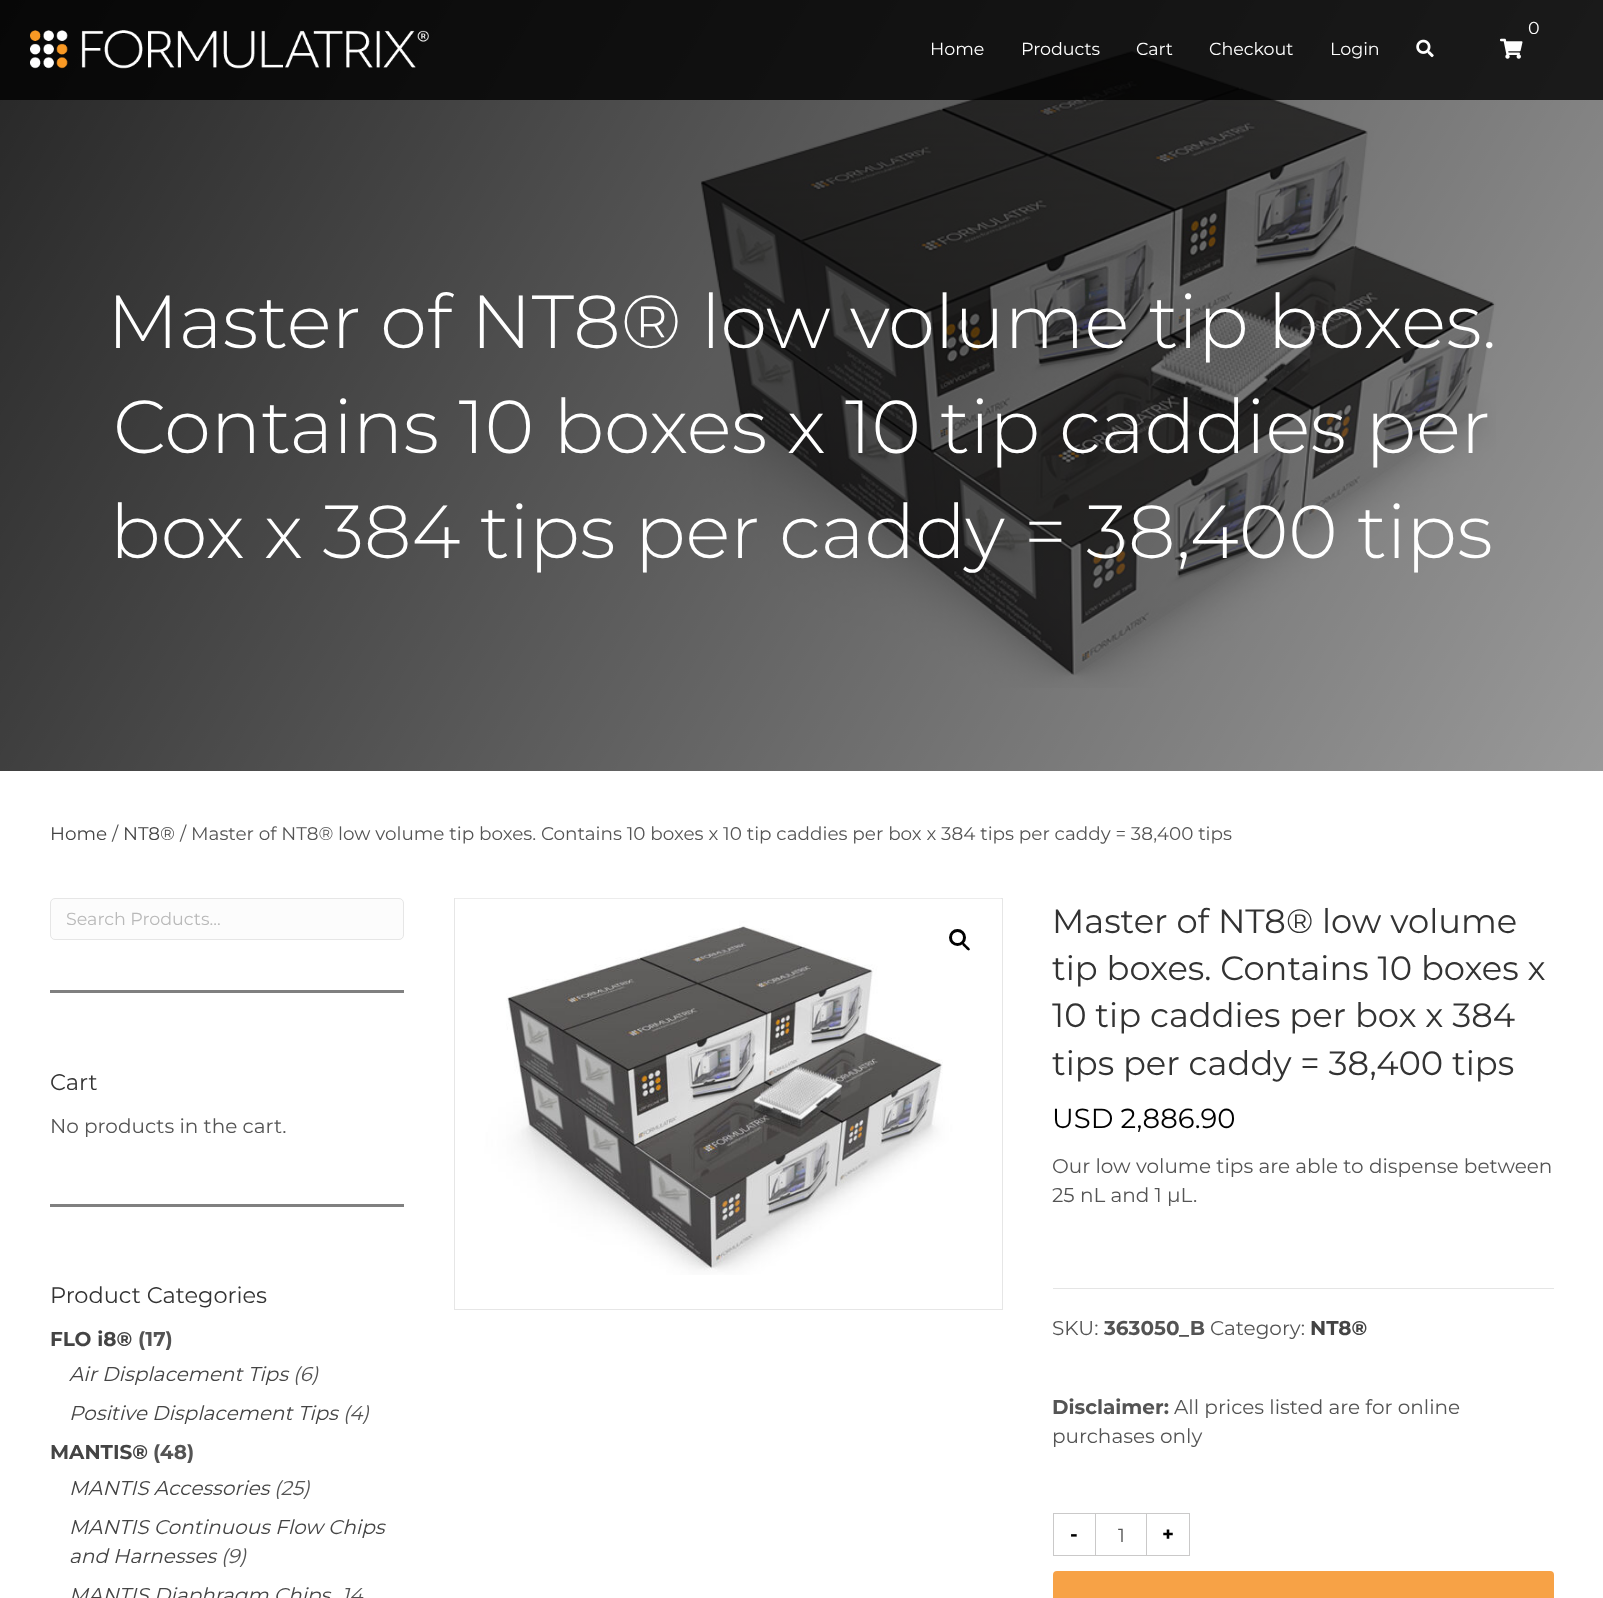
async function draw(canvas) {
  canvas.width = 1603
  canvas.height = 1598
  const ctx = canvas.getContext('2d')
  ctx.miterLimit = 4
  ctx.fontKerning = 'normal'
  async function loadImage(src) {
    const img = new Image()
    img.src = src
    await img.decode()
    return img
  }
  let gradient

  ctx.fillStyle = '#fff'
  ctx.fillRect(0, 0, 1603, 1598)
  ctx.drawImage(await loadImage('image3.png'), 700, 51, 796, 637)
  gradient = ctx.createLinearGradient(33, -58, 1570, 829)
  gradient.addColorStop(0, '#000000d9')
  gradient.addColorStop(1, '#00000066')
  ctx.fillStyle = gradient
  ctx.fillRect(0, 0, 1603, 771)
  ctx.fillStyle = '#000000cc'
  ctx.fillRect(0, 0, 1603, 100)
  ctx.font = '17.5px Montserrat'
  ctx.fillStyle = '#fff'
  ctx.fillText('0', 1528, 34)
  ctx.drawImage(await loadImage('image0.png'), 1500, 38, 23, 21)
  ctx.drawImage(await loadImage('image1.png'), 30, 30, 399, 39)
  ctx.fillText('Home', 930, 55)
  ctx.fillText('Products', 1021, 55)
  ctx.fillText('Cart', 1136, 55)
  ctx.fillText('Checkout', 1209, 55)
  ctx.fillText('Login', 1330, 55)
  ctx.drawImage(await loadImage('image2.png'), 1416, 39, 18, 19)
  ctx.font = '300 75px Montserrat'
  ctx.fillText('Master of NT8® low volume tip boxes.', 107, 348)
  ctx.fillText('Contains 10 boxes x 10 tip caddies per', 113, 453)
  ctx.fillText('box x 384 tips per caddy = 38,400 tips', 110, 558)
  ctx.font = '18.4px Montserrat'
  ctx.fillStyle = '#444'
  ctx.fillText('Home', 50, 840)
  ctx.fillStyle = '#545454'
  ctx.fillText('/', 112, 840)
  ctx.fillStyle = '#444'
  ctx.fillText('NT8®', 123, 840)
  ctx.fillStyle = '#545454'
  ctx.fillText('/ Master of NT8® low volume tip boxes. Contains 10 boxes x 10 tip caddies per box x 384 tips per caddy = 38,400 tips', 180, 840)
  ctx.fillStyle = '#fcfcfc'
  ctx.beginPath()
  ctx.roundRect(50.5, 898.5, 353, 41, 4.5)
  ctx.fill()
  ctx.strokeStyle = '#e6e6e6'
  ctx.stroke()
  ctx.font = '17.5px Montserrat'
  ctx.fillStyle = '#b9b9b9'
  ctx.fillText('Search Products...', 66, 925)
  ctx.fillStyle = '#808080'
  ctx.fillRect(50, 990, 354, 3)
  ctx.font = '22.5px Montserrat'
  ctx.fillStyle = '#333'
  ctx.fillText('Cart', 50, 1090)
  ctx.font = '20px Montserrat'
  ctx.fillStyle = '#545454'
  ctx.fillText('No products in the cart.', 50, 1133)
  ctx.fillStyle = '#808080'
  ctx.fillRect(50, 1204, 354, 3)
  ctx.font = '22.5px Montserrat'
  ctx.fillStyle = '#333'
  ctx.fillText('Product Categories', 50, 1303)
  ctx.font = 'bold 20px Montserrat'
  ctx.fillStyle = '#444'
  ctx.fillText('FLO i8®', 50, 1346)
  ctx.fillStyle = '#545454'
  ctx.fillText('(17)', 138, 1346)
  ctx.font = 'italic 20px Montserrat'
  ctx.fillStyle = '#444'
  ctx.fillText('Air Displacement Tips', 69, 1381)
  ctx.fillStyle = '#545454'
  ctx.fillText('(6)', 293, 1381)
  ctx.fillStyle = '#444'
  ctx.fillText('Positive Displacement Tips', 69, 1420)
  ctx.fillStyle = '#545454'
  ctx.fillText('(4)', 343, 1420)
  ctx.font = 'bold 20px Montserrat'
  ctx.fillStyle = '#444'
  ctx.fillText('MANTIS®', 50, 1459)
  ctx.fillStyle = '#545454'
  ctx.fillText('(48)', 153, 1459)
  ctx.font = 'italic 20px Montserrat'
  ctx.fillStyle = '#444'
  ctx.fillText('MANTIS Accessories', 69, 1495)
  ctx.fillStyle = '#545454'
  ctx.fillText('(25)', 274, 1495)
  ctx.fillStyle = '#444'
  ctx.fillText('MANTIS Continuous Flow Chips', 69, 1534)
  ctx.fillText('and Harnesses', 69, 1563)
  ctx.fillStyle = '#545454'
  ctx.fillText('(9)', 221, 1563)
  ctx.fillStyle = '#444'
  ctx.fillText('MANTIS Diaphragm Chips', 69, 1602)
  ctx.fillStyle = '#545454'
  ctx.fillText('14', 342, 1602)
  ctx.strokeRect(454.5, 898.5, 548, 411)
  ctx.drawImage(await loadImage('image4.png'), 455, 898, 546, 377)
  ctx.beginPath()
  ctx.arc(957.5, 937.5, 7, 0, 2 * Math.PI)
  ctx.strokeStyle = '#000'
  ctx.lineWidth = 3
  ctx.stroke()
  ctx.fillStyle = '#000'
  ctx.beginPath()
  ctx.moveTo(962.5, 943)
  ctx.bezierCurveTo(964, 941.5, 966, 945, 967, 946)
  ctx.bezierCurveTo(967.5, 946.5, 971, 949, 969.5, 950)
  ctx.bezierCurveTo(968, 951.5, 966, 948.5, 965, 947.5)
  ctx.bezierCurveTo(964.5, 947, 961, 944.5, 962.5, 943)
  ctx.closePath()
  ctx.fill()
  ctx.font = '33.75px Montserrat'
  ctx.fillStyle = '#333'
  ctx.fillText('Master of NT8® low volume', 1052, 933)
  ctx.fillText('tip boxes. Contains 10 boxes x', 1052, 980)
  ctx.fillText('10 tip caddies per box x 384', 1052, 1027)
  ctx.fillText('tips per caddy = 38,400 tips', 1052, 1075)
  ctx.font = '27.5px Montserrat'
  ctx.fillStyle = '#000'
  ctx.fillText('USD 2,886.90', 1052, 1128)
  ctx.font = '20px Montserrat'
  ctx.fillStyle = '#545454'
  ctx.fillText('Our low volume tips are able to dispense between', 1052, 1173)
  ctx.fillText('25 nL and 1 µL.', 1052, 1202)
  ctx.fillStyle = '#e5e5e5'
  ctx.fillRect(1053, 1288, 501, 1)
  ctx.fillStyle = '#545454'
  ctx.fillText('SKU:', 1052, 1335)
  ctx.font = 'bold 20px Montserrat'
  ctx.fillText('363050_B', 1104, 1335)
  ctx.font = '20px Montserrat'
  ctx.fillText('Category:', 1210, 1335)
  ctx.font = 'bold 20px Montserrat'
  ctx.fillStyle = '#444'
  ctx.fillText('NT8®', 1310, 1335)
  ctx.fillStyle = '#545454'
  ctx.fillText('Disclaimer:', 1052, 1414)
  ctx.font = '20px Montserrat'
  ctx.fillText('All prices listed are for online', 1174, 1414)
  ctx.fillText('purchases only', 1052, 1443)
  ctx.strokeStyle = '#cac9c9'
  ctx.lineWidth = 1
  ctx.strokeRect(1053.5, 1513.5, 42, 42)
  ctx.font = 'bold 20px Montserrat'
  ctx.fillStyle = '#000'
  ctx.fillText('-', 1070, 1541)
  ctx.fillStyle = '#cac9c9'
  ctx.fillRect(1096, 1513, 50, 1)
  ctx.fillRect(1096, 1555, 50, 1)
  ctx.font = '19px Montserrat'
  ctx.fillStyle = '#545454'
  ctx.fillText('1', 1118, 1542)
  ctx.strokeRect(1146.5, 1513.5, 43, 42)
  ctx.font = 'bold 20px Montserrat'
  ctx.fillStyle = '#000'
  ctx.fillText('+', 1162, 1541)
  ctx.fillStyle = '#f7a246'
  ctx.beginPath()
  ctx.roundRect(1053, 1571, 501, 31, 4)
  ctx.fill()
}

draw(document.querySelector('canvas'))
